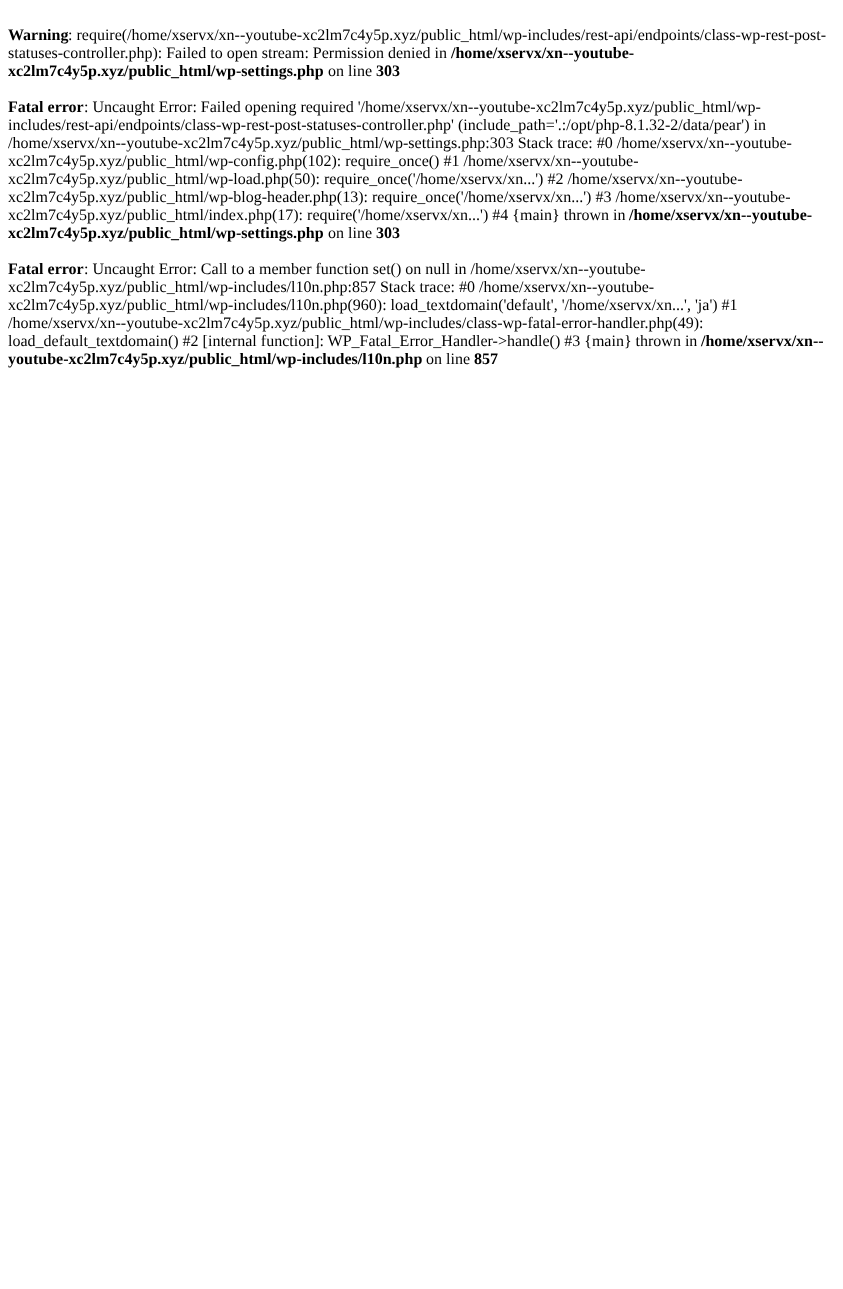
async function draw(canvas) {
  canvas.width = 843
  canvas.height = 1289
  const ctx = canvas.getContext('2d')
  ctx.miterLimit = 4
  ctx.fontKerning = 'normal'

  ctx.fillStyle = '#fff'
  ctx.fillRect(0, 0, 843, 1289)
  ctx.font = 'bold 16px Liberation Serif'
  ctx.fillStyle = '#000'
  ctx.fillText('Warning', 8, 40)
  ctx.font = '16px Liberation Serif'
  ctx.fillText(': require(/home/xservx/xn--youtube-xc2lm7c4y5p.xyz/public_html/wp-includes/rest-api/endpoints/class-wp-rest-post-', 68, 40)
  ctx.fillText('statuses-controller.php): Failed to open stream: Permission denied in', 8, 58)
  ctx.font = 'bold 16px Liberation Serif'
  ctx.fillText('/home/xservx/xn--youtube-', 451, 58)
  ctx.fillText('xc2lm7c4y5p.xyz/public_html/wp-settings.php', 8, 76)
  ctx.font = '16px Liberation Serif'
  ctx.fillText('on line', 328, 76)
  ctx.font = 'bold 16px Liberation Serif'
  ctx.fillText('303', 376, 76)
  ctx.fillText('Fatal error', 8, 112)
  ctx.font = '16px Liberation Serif'
  ctx.fillText(': Uncaught Error: Failed opening required \'/home/xservx/xn--youtube-xc2lm7c4y5p.xyz/public_html/wp-', 84, 112)
  ctx.fillText('includes/rest-api/endpoints/class-wp-rest-post-statuses-controller.php\' (include_path=\'.:/opt/php-8.1.32-2/data/pear\') in', 8, 130)
  ctx.fillText('/home/xservx/xn--youtube-xc2lm7c4y5p.xyz/public_html/wp-settings.php:303 Stack trace: #0 /home/xservx/xn--youtube-', 8, 148)
  ctx.fillText('xc2lm7c4y5p.xyz/public_html/wp-config.php(102): require_once() #1 /home/xservx/xn--youtube-', 8, 166)
  ctx.fillText('xc2lm7c4y5p.xyz/public_html/wp-load.php(50): require_once(\'/home/xservx/xn...\') #2 /home/xservx/xn--youtube-', 8, 184)
  ctx.fillText('xc2lm7c4y5p.xyz/public_html/wp-blog-header.php(13): require_once(\'/home/xservx/xn...\') #3 /home/xservx/xn--youtube-', 8, 202)
  ctx.fillText('xc2lm7c4y5p.xyz/public_html/index.php(17): require(\'/home/xservx/xn...\') #4 {main} thrown in', 8, 220)
  ctx.font = 'bold 16px Liberation Serif'
  ctx.fillText('/home/xservx/xn--youtube-', 629, 220)
  ctx.fillText('xc2lm7c4y5p.xyz/public_html/wp-settings.php', 8, 238)
  ctx.font = '16px Liberation Serif'
  ctx.fillText('on line', 328, 238)
  ctx.font = 'bold 16px Liberation Serif'
  ctx.fillText('303', 376, 238)
  ctx.fillText('Fatal error', 8, 274)
  ctx.font = '16px Liberation Serif'
  ctx.fillText(': Uncaught Error: Call to a member function set() on null in /home/xservx/xn--youtube-', 84, 274)
  ctx.fillText('xc2lm7c4y5p.xyz/public_html/wp-includes/l10n.php:857 Stack trace: #0 /home/xservx/xn--youtube-', 8, 292)
  ctx.fillText('xc2lm7c4y5p.xyz/public_html/wp-includes/l10n.php(960): load_textdomain(\'default\', \'/home/xservx/xn...\', \'ja\') #1', 8, 310)
  ctx.fillText('/home/xservx/xn--youtube-xc2lm7c4y5p.xyz/public_html/wp-includes/class-wp-fatal-error-handler.php(49):', 8, 328)
  ctx.fillText('load_default_textdomain() #2 [internal function]: WP_Fatal_Error_Handler->handle() #3 {main} thrown in', 8, 346)
  ctx.font = 'bold 16px Liberation Serif'
  ctx.fillText('/home/xservx/xn--', 701, 346)
  ctx.fillText('youtube-xc2lm7c4y5p.xyz/public_html/wp-includes/l10n.php', 8, 364)
  ctx.font = '16px Liberation Serif'
  ctx.fillText('on line', 426, 364)
  ctx.font = 'bold 16px Liberation Serif'
  ctx.fillText('857', 474, 364)
}

draw(document.querySelector('canvas'))
